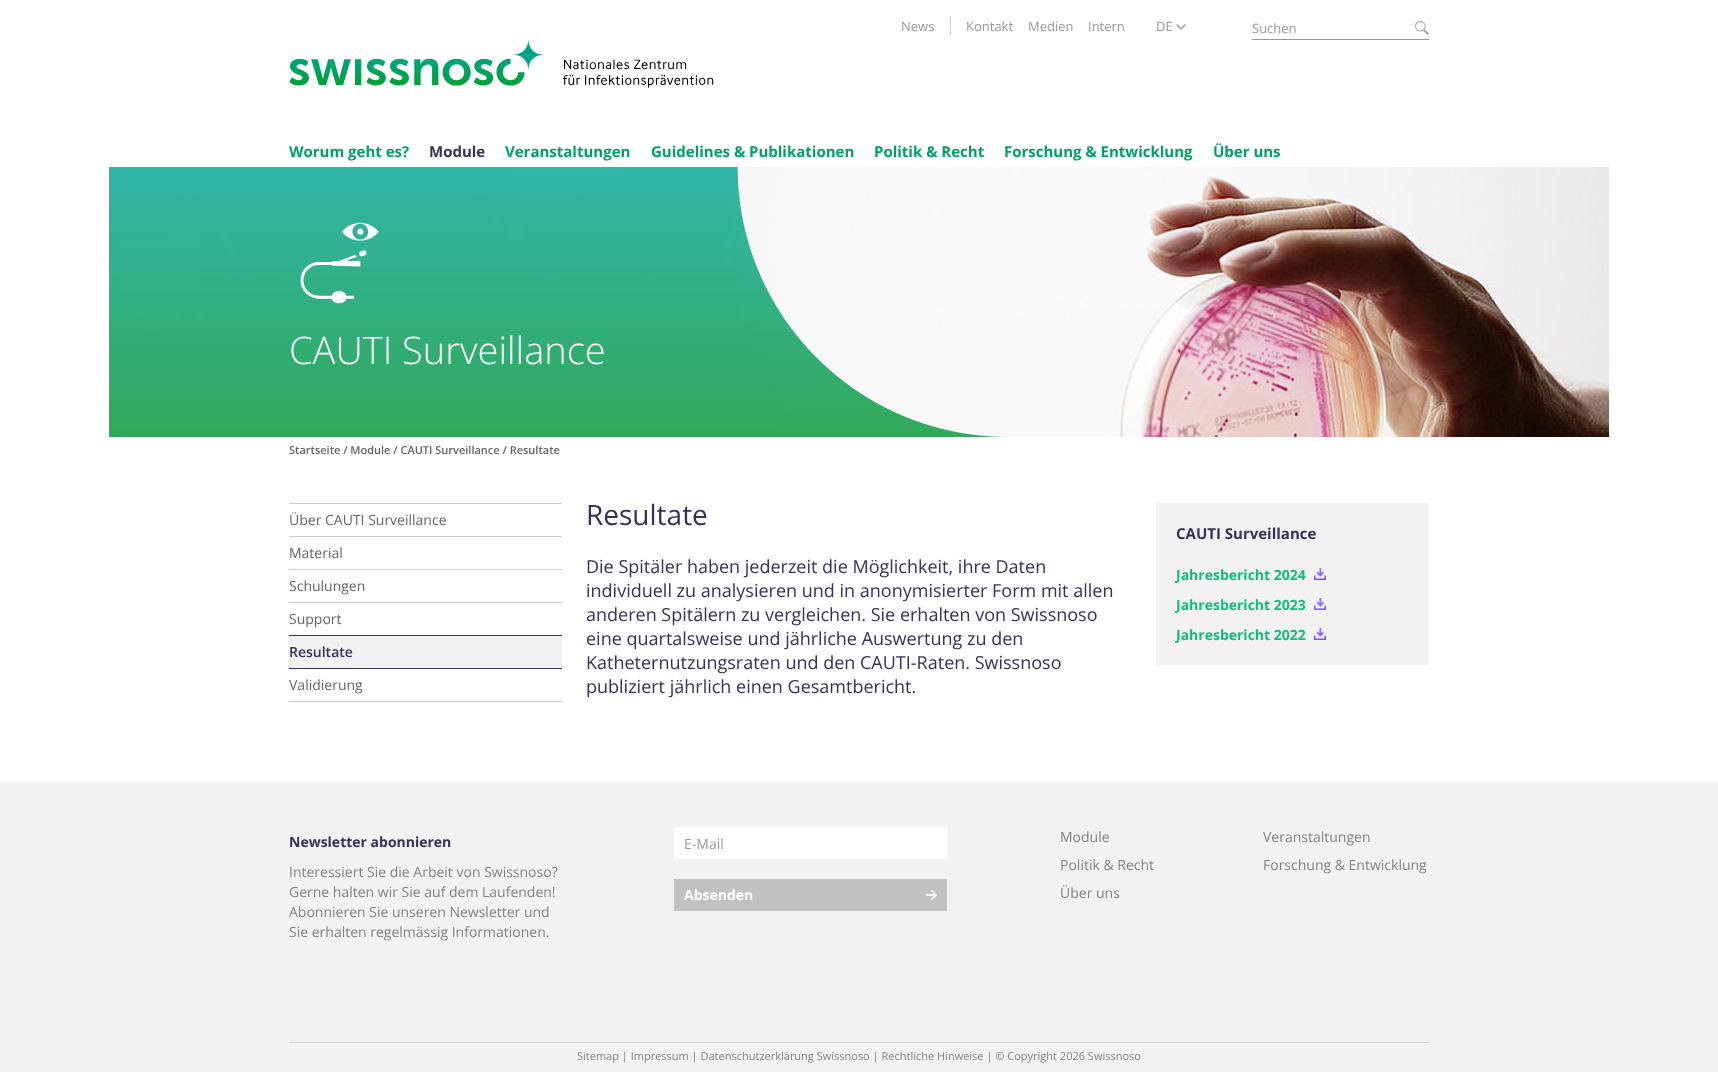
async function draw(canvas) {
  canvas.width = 1718
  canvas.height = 1072
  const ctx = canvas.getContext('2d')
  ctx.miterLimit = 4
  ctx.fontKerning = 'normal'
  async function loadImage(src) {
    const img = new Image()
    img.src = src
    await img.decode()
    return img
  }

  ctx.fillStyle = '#fff'
  ctx.fillRect(0, 0, 1718, 1072)
  ctx.fillStyle = '#cacaca'
  ctx.fillRect(950, 17, 1, 18)
  ctx.font = '13px Open Sans'
  ctx.fillStyle = '#979797'
  ctx.fillText('News', 901, 31)
  ctx.fillText('Kontakt', 966, 31)
  ctx.fillText('Medien', 1028, 31)
  ctx.fillText('Intern', 1088, 31)
  ctx.drawImage(await loadImage('image0.png'), 1176, 24, 10, 6)
  ctx.fillText('DE', 1156, 31)
  ctx.fillRect(1252, 39, 177, 1)
  ctx.fillText('Suchen', 1252, 33)
  ctx.drawImage(await loadImage('image1.png'), 1415, 21, 14, 14)
  ctx.drawImage(await loadImage('image2.png'), 289, 40, 425, 48)
  ctx.font = 'bold 15px Open Sans'
  ctx.fillStyle = '#00a264'
  ctx.fillText('Worum geht es?', 289, 157)
  ctx.fillStyle = '#32325a'
  ctx.fillText('Module', 429, 157)
  ctx.fillStyle = '#00a264'
  ctx.fillText('Veranstaltungen', 505, 157)
  ctx.fillText('Guidelines & Publikationen', 651, 157)
  ctx.fillText('Politik & Recht', 874, 157)
  ctx.fillText('Forschung & Entwicklung', 1004, 157)
  ctx.fillText('Über uns', 1213, 157)
  ctx.drawImage(await loadImage('image3.png'), 109, 167, 1500, 270)
  ctx.drawImage(await loadImage('image4.png'), 109, 167, 899, 270)
  ctx.drawImage(await loadImage('image5.png'), 300, 222, 79, 82)
  ctx.font = '300 38px Open Sans'
  ctx.fillStyle = '#fff'
  ctx.fillText('CAUTI Surveillance', 289, 364)
  ctx.font = '600 11px Open Sans'
  ctx.fillStyle = '#646464'
  ctx.fillText('Startseite / Module / CAUTI Surveillance / Resultate', 289, 454)
  ctx.fillStyle = '#cacaca'
  ctx.fillRect(289, 503, 273, 1)
  ctx.font = '14px Open Sans'
  ctx.fillStyle = '#646464'
  ctx.fillText('Über CAUTI Surveillance', 289, 525)
  ctx.fillStyle = '#cacaca'
  ctx.fillRect(289, 536, 273, 1)
  ctx.fillStyle = '#646464'
  ctx.fillText('Material', 289, 558)
  ctx.fillStyle = '#cacaca'
  ctx.fillRect(289, 569, 273, 1)
  ctx.fillStyle = '#646464'
  ctx.fillText('Schulungen', 289, 591)
  ctx.fillStyle = '#cacaca'
  ctx.fillRect(289, 602, 273, 1)
  ctx.fillStyle = '#646464'
  ctx.fillText('Support', 289, 624)
  ctx.fillStyle = '#32325a'
  ctx.fillRect(289, 635, 273, 1)
  ctx.fillRect(289, 668, 273, 1)
  ctx.fillStyle = '#f2f2f2'
  ctx.fillRect(289, 636, 273, 32)
  ctx.font = '600 14px Open Sans'
  ctx.fillStyle = '#32325a'
  ctx.fillText('Resultate', 289, 657)
  ctx.fillStyle = '#cacaca'
  ctx.fillRect(289, 701, 273, 1)
  ctx.font = '14px Open Sans'
  ctx.fillStyle = '#646464'
  ctx.fillText('Validierung', 289, 690)
  ctx.font = '28px Open Sans'
  ctx.fillStyle = '#32325a'
  ctx.fillText('Resultate', 586, 525)
  ctx.font = '18px Open Sans'
  ctx.fillText('Die Spitäler haben jederzeit die Möglichkeit, ihre Daten', 586, 573)
  ctx.fillText('individuell zu analysieren und in anonymisierter Form mit allen', 586, 597)
  ctx.fillText('anderen Spitälern zu vergleichen. Sie erhalten von Swissnoso', 586, 621)
  ctx.fillText('eine quartalsweise und jährliche Auswertung zu den', 586, 645)
  ctx.fillText('Katheternutzungsraten und den CAUTI-Raten. Swissnoso', 586, 669)
  ctx.fillText('publiziert jährlich einen Gesamtbericht.', 586, 693)
  ctx.fillStyle = '#f2f2f2'
  ctx.fillRect(1156, 503, 273, 162)
  ctx.font = 'bold 15px Open Sans'
  ctx.fillStyle = '#32325a'
  ctx.fillText('CAUTI Surveillance', 1176, 539)
  ctx.font = 'bold 14px Open Sans'
  ctx.fillStyle = '#0fbe78'
  ctx.fillText('Jahresbericht 2024', 1176, 580)
  ctx.drawImage(await loadImage('image6.png'), 1314, 568, 12, 12)
  ctx.fillText('Jahresbericht 2023', 1176, 610)
  ctx.drawImage(await loadImage('image6.png'), 1314, 598, 12, 12)
  ctx.fillText('Jahresbericht 2022', 1176, 640)
  ctx.drawImage(await loadImage('image6.png'), 1314, 628, 12, 12)
  ctx.fillStyle = '#f2f2f2'
  ctx.fillRect(0, 782, 1718, 290)
  ctx.fillStyle = '#32325a'
  ctx.fillText('Newsletter abonnieren', 289, 847)
  ctx.font = '14px Open Sans'
  ctx.fillStyle = '#828282'
  ctx.fillText('Interessiert Sie die Arbeit von Swissnoso?', 289, 877)
  ctx.fillText('Gerne halten wir Sie auf dem Laufenden!', 289, 897)
  ctx.fillText('Abonnieren Sie unseren Newsletter und', 289, 917)
  ctx.fillText('Sie erhalten regelmässig Informationen.', 289, 937)
  ctx.fillStyle = '#fff'
  ctx.fillRect(674, 827, 273, 32)
  ctx.fillStyle = '#979797'
  ctx.fillText('E-Mail', 684, 849)
  ctx.fillStyle = '#c1c1c1'
  ctx.fillRect(674, 879, 273, 32)
  ctx.drawImage(await loadImage('image7.png'), 926, 890, 11, 10)
  ctx.font = 'bold 14px Open Sans'
  ctx.fillStyle = '#fff'
  ctx.fillText('Absenden', 684, 900)
  ctx.font = '14px Open Sans'
  ctx.fillStyle = '#828282'
  ctx.fillText('Module', 1060, 842)
  ctx.fillText('Veranstaltungen', 1263, 842)
  ctx.fillText('Politik & Recht', 1060, 870)
  ctx.fillText('Forschung & Entwicklung', 1263, 870)
  ctx.fillText('Über uns', 1060, 898)
  ctx.fillStyle = '#d6d6d6'
  ctx.fillRect(289, 1042, 1140, 1)
  ctx.font = '11px Open Sans'
  ctx.fillStyle = '#828282'
  ctx.fillText('Sitemap | Impressum | Datenschutzerklärung Swissnoso | Rechtliche Hinweise | © Copyright 2026 Swissnoso', 577, 1060)
}

draw(document.querySelector('canvas'))
